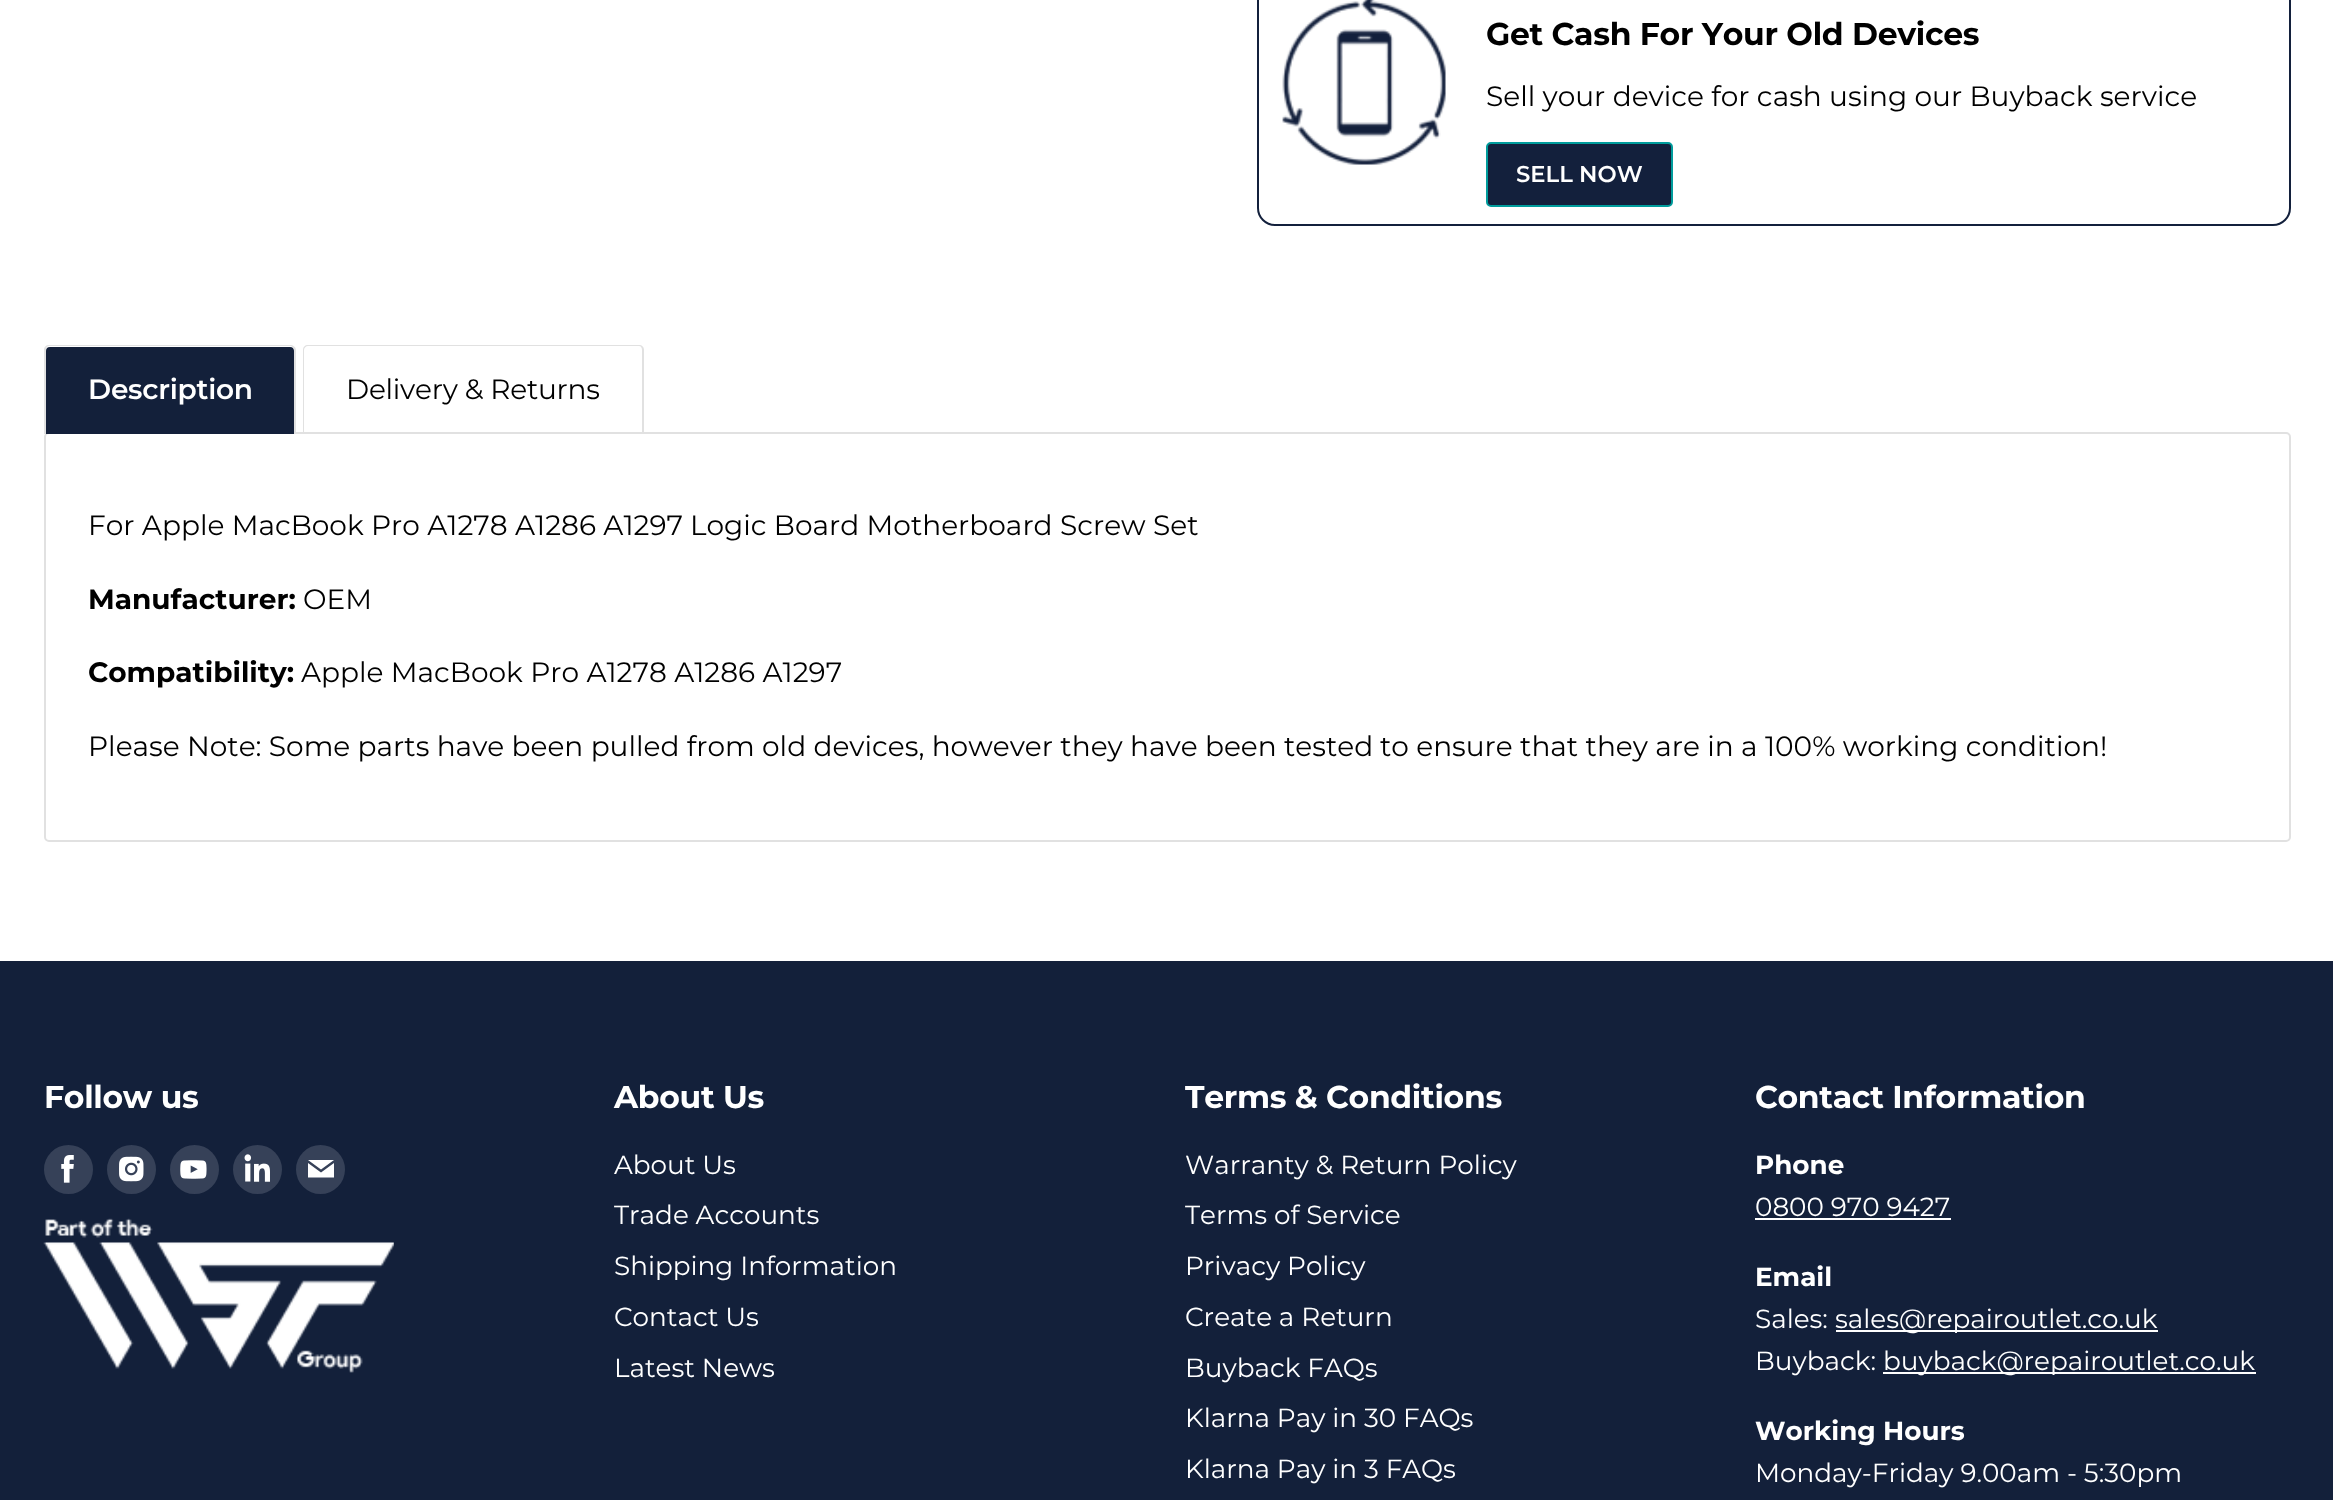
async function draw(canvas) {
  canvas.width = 2333
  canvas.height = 1500
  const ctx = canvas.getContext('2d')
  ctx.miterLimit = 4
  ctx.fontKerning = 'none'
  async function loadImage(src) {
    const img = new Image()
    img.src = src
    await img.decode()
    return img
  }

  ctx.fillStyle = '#fff'
  ctx.fillRect(0, 0, 2333, 1500)
  ctx.beginPath()
  ctx.roundRect(1258, -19, 1032, 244, 17)
  ctx.strokeStyle = '#13203c'
  ctx.lineWidth = 2
  ctx.stroke()
  ctx.drawImage(await loadImage('image0.png'), 1282, 0, 164, 165)
  ctx.letterSpacing = '-0.3px'
  ctx.font = 'bold 31.5px Montserrat'
  ctx.fillStyle = '#000'
  ctx.fillText('Get Cash For Your Old Devices', 1486, 45)
  ctx.letterSpacing = '0px'
  ctx.font = '28px Montserrat'
  ctx.fillText('Sell your device for cash using our Buyback service', 1486, 106)
  ctx.fillStyle = '#13203c'
  ctx.beginPath()
  ctx.roundRect(1487, 143, 185, 63, 4)
  ctx.fill()
  ctx.strokeStyle = '#009c9c'
  ctx.stroke()
  ctx.font = '600 22.75px Montserrat'
  ctx.fillStyle = '#fff'
  ctx.fillText('SELL NOW', 1516, 182)
  ctx.beginPath()
  ctx.roundRect(45, 433, 2245, 408, 4)
  ctx.strokeStyle = '#e1e1e1'
  ctx.stroke()
  ctx.fillStyle = '#13203a'
  ctx.beginPath()
  ctx.roundRect(46, 347, 248, 87, [4, 4, 0, 0])
  ctx.fill()
  ctx.fillStyle = '#e1e1e1'
  ctx.beginPath()
  ctx.moveTo(49, 345)
  ctx.lineTo(290, 345)
  ctx.bezierCurveTo(293, 345, 296, 347, 296, 350)
  ctx.lineTo(296, 434)
  ctx.lineTo(44, 434)
  ctx.lineTo(44, 350)
  ctx.bezierCurveTo(44, 347, 46, 345, 49, 345)
  ctx.closePath()
  ctx.moveTo(49, 346)
  ctx.lineTo(290, 346)
  ctx.bezierCurveTo(292, 346, 294, 348, 294, 350)
  ctx.lineTo(294, 434)
  ctx.lineTo(46, 434)
  ctx.lineTo(46, 350)
  ctx.bezierCurveTo(46, 348, 47, 346, 49, 346)
  ctx.closePath()
  ctx.fill('evenodd')
  ctx.letterSpacing = '-0.25px'
  ctx.font = '600 28px Montserrat'
  ctx.fillStyle = '#fff'
  ctx.fillText('Description', 88, 399)
  ctx.fillStyle = '#e1e1e1'
  ctx.beginPath()
  ctx.moveTo(308, 345)
  ctx.lineTo(639, 345)
  ctx.bezierCurveTo(642, 345, 644, 347, 644, 350)
  ctx.lineTo(644, 434)
  ctx.lineTo(303, 434)
  ctx.lineTo(303, 350)
  ctx.bezierCurveTo(303, 347, 305, 345, 308, 345)
  ctx.closePath()
  ctx.moveTo(308, 346)
  ctx.lineTo(639, 346)
  ctx.bezierCurveTo(641, 346, 642, 348, 642, 350)
  ctx.lineTo(642, 434)
  ctx.lineTo(304, 434)
  ctx.lineTo(304, 350)
  ctx.bezierCurveTo(304, 348, 306, 346, 308, 346)
  ctx.closePath()
  ctx.fill('evenodd')
  ctx.font = '28px Montserrat'
  ctx.fillStyle = '#000'
  ctx.fillText('Delivery & Returns', 346, 399)
  ctx.letterSpacing = '0px'
  ctx.fillText('For Apple MacBook Pro A1278 A1286 A1297', 88, 535)
  ctx.fillText('Logic Board Motherboard Screw Set', 690, 535)
  ctx.font = 'bold 28px Montserrat'
  ctx.fillText('Manufacturer:', 88, 609)
  ctx.font = '28px Montserrat'
  ctx.fillText('OEM', 303, 609)
  ctx.font = 'bold 28px Montserrat'
  ctx.fillText('Compatibility:', 88, 682)
  ctx.font = '28px Montserrat'
  ctx.fillText('Apple MacBook Pro A1278 A1286 A1297', 301, 682)
  ctx.fillText('Please Note: Some parts have been pulled from old devices, however they have been tested', 88, 756)
  ctx.fillText('to ensure that they are in a 100% working condition!', 1380, 756)
  ctx.fillStyle = '#13203a'
  ctx.fillRect(0, 961, 2333, 539)
  ctx.letterSpacing = '-0.3px'
  ctx.font = 'bold 31.5px Montserrat'
  ctx.fillStyle = '#fff'
  ctx.fillText('Follow us', 44, 1108)
  ctx.fillStyle = '#364158'
  ctx.beginPath()
  ctx.arc(68.5, 1169.5, 24.5, 0, 2 * Math.PI)
  ctx.fill()
  ctx.drawImage(await loadImage('image1.png'), 61, 1155, 13, 28)
  ctx.beginPath()
  ctx.arc(131.5, 1169.5, 24.5, 0, 2 * Math.PI)
  ctx.fill()
  ctx.drawImage(await loadImage('image2.png'), 119, 1156, 25, 26)
  ctx.beginPath()
  ctx.arc(194.5, 1169.5, 24.5, 0, 2 * Math.PI)
  ctx.fill()
  ctx.drawImage(await loadImage('image3.png'), 180, 1160, 27, 19)
  ctx.beginPath()
  ctx.arc(257.5, 1169.5, 24.5, 0, 2 * Math.PI)
  ctx.fill()
  ctx.drawImage(await loadImage('image4.png'), 244, 1154, 26, 28)
  ctx.beginPath()
  ctx.arc(320.5, 1169.5, 24.5, 0, 2 * Math.PI)
  ctx.fill()
  ctx.fillStyle = '#fff'
  ctx.beginPath()
  ctx.moveTo(334, 1160)
  ctx.lineTo(308, 1160)
  ctx.lineTo(321, 1169.5)
  ctx.closePath()
  ctx.moveTo(321, 1172.5)
  ctx.lineTo(308, 1163)
  ctx.lineTo(308, 1177.5)
  ctx.lineTo(334, 1177.5)
  ctx.lineTo(334, 1163)
  ctx.closePath()
  ctx.fill('evenodd')
  ctx.drawImage(await loadImage('image5.png'), 43, 1218, 351, 155)
  ctx.fillText('About Us', 614, 1108)
  ctx.letterSpacing = '0px'
  ctx.font = '26.25px Montserrat'
  ctx.fillText('About Us', 614, 1174)
  ctx.fillText('Trade Accounts', 614, 1224)
  ctx.fillText('Shipping Information', 614, 1275)
  ctx.fillText('Contact Us', 614, 1326)
  ctx.fillText('Latest News', 614, 1377)
  ctx.letterSpacing = '-0.3px'
  ctx.font = 'bold 31.5px Montserrat'
  ctx.fillText('Terms & Conditions', 1185, 1108)
  ctx.letterSpacing = '0px'
  ctx.font = '26.25px Montserrat'
  ctx.fillText('Warranty & Return Policy', 1185, 1174)
  ctx.fillText('Terms of Service', 1185, 1224)
  ctx.fillText('Privacy Policy', 1185, 1275)
  ctx.fillText('Create a Return', 1185, 1326)
  ctx.fillText('Buyback FAQs', 1185, 1377)
  ctx.fillText('Klarna Pay in 30 FAQs', 1185, 1427)
  ctx.fillText('Klarna Pay in 3 FAQs', 1185, 1478)
  ctx.letterSpacing = '-0.3px'
  ctx.font = 'bold 31.5px Montserrat'
  ctx.fillText('Contact Information', 1755, 1108)
  ctx.letterSpacing = '0px'
  ctx.font = 'bold 26.25px Montserrat'
  ctx.fillText('Phone', 1755, 1174)
  ctx.font = '26.25px Montserrat'
  ctx.fillText('0800 970 9427', 1755, 1216)
  ctx.fillRect(1755, 1218, 196, 2)
  ctx.font = 'bold 26.25px Montserrat'
  ctx.fillText('Email', 1755, 1286)
  ctx.font = '26.25px Montserrat'
  ctx.fillText('Sales:', 1755, 1328)
  ctx.fillRect(1836, 1330, 322, 2)
  ctx.fillText('sales@repairoutlet.co.uk', 1835, 1328)
  ctx.fillText('Buyback:', 1755, 1370)
  ctx.fillRect(1883, 1372, 373, 2)
  ctx.fillText('buyback@repairoutlet.co.uk', 1883, 1370)
  ctx.font = 'bold 26.25px Montserrat'
  ctx.fillText('Working Hours', 1755, 1440)
  ctx.font = '26.25px Montserrat'
  ctx.fillText('Monday-Friday 9.00am - 5:30pm', 1755, 1482)
}

draw(document.querySelector('canvas'))
